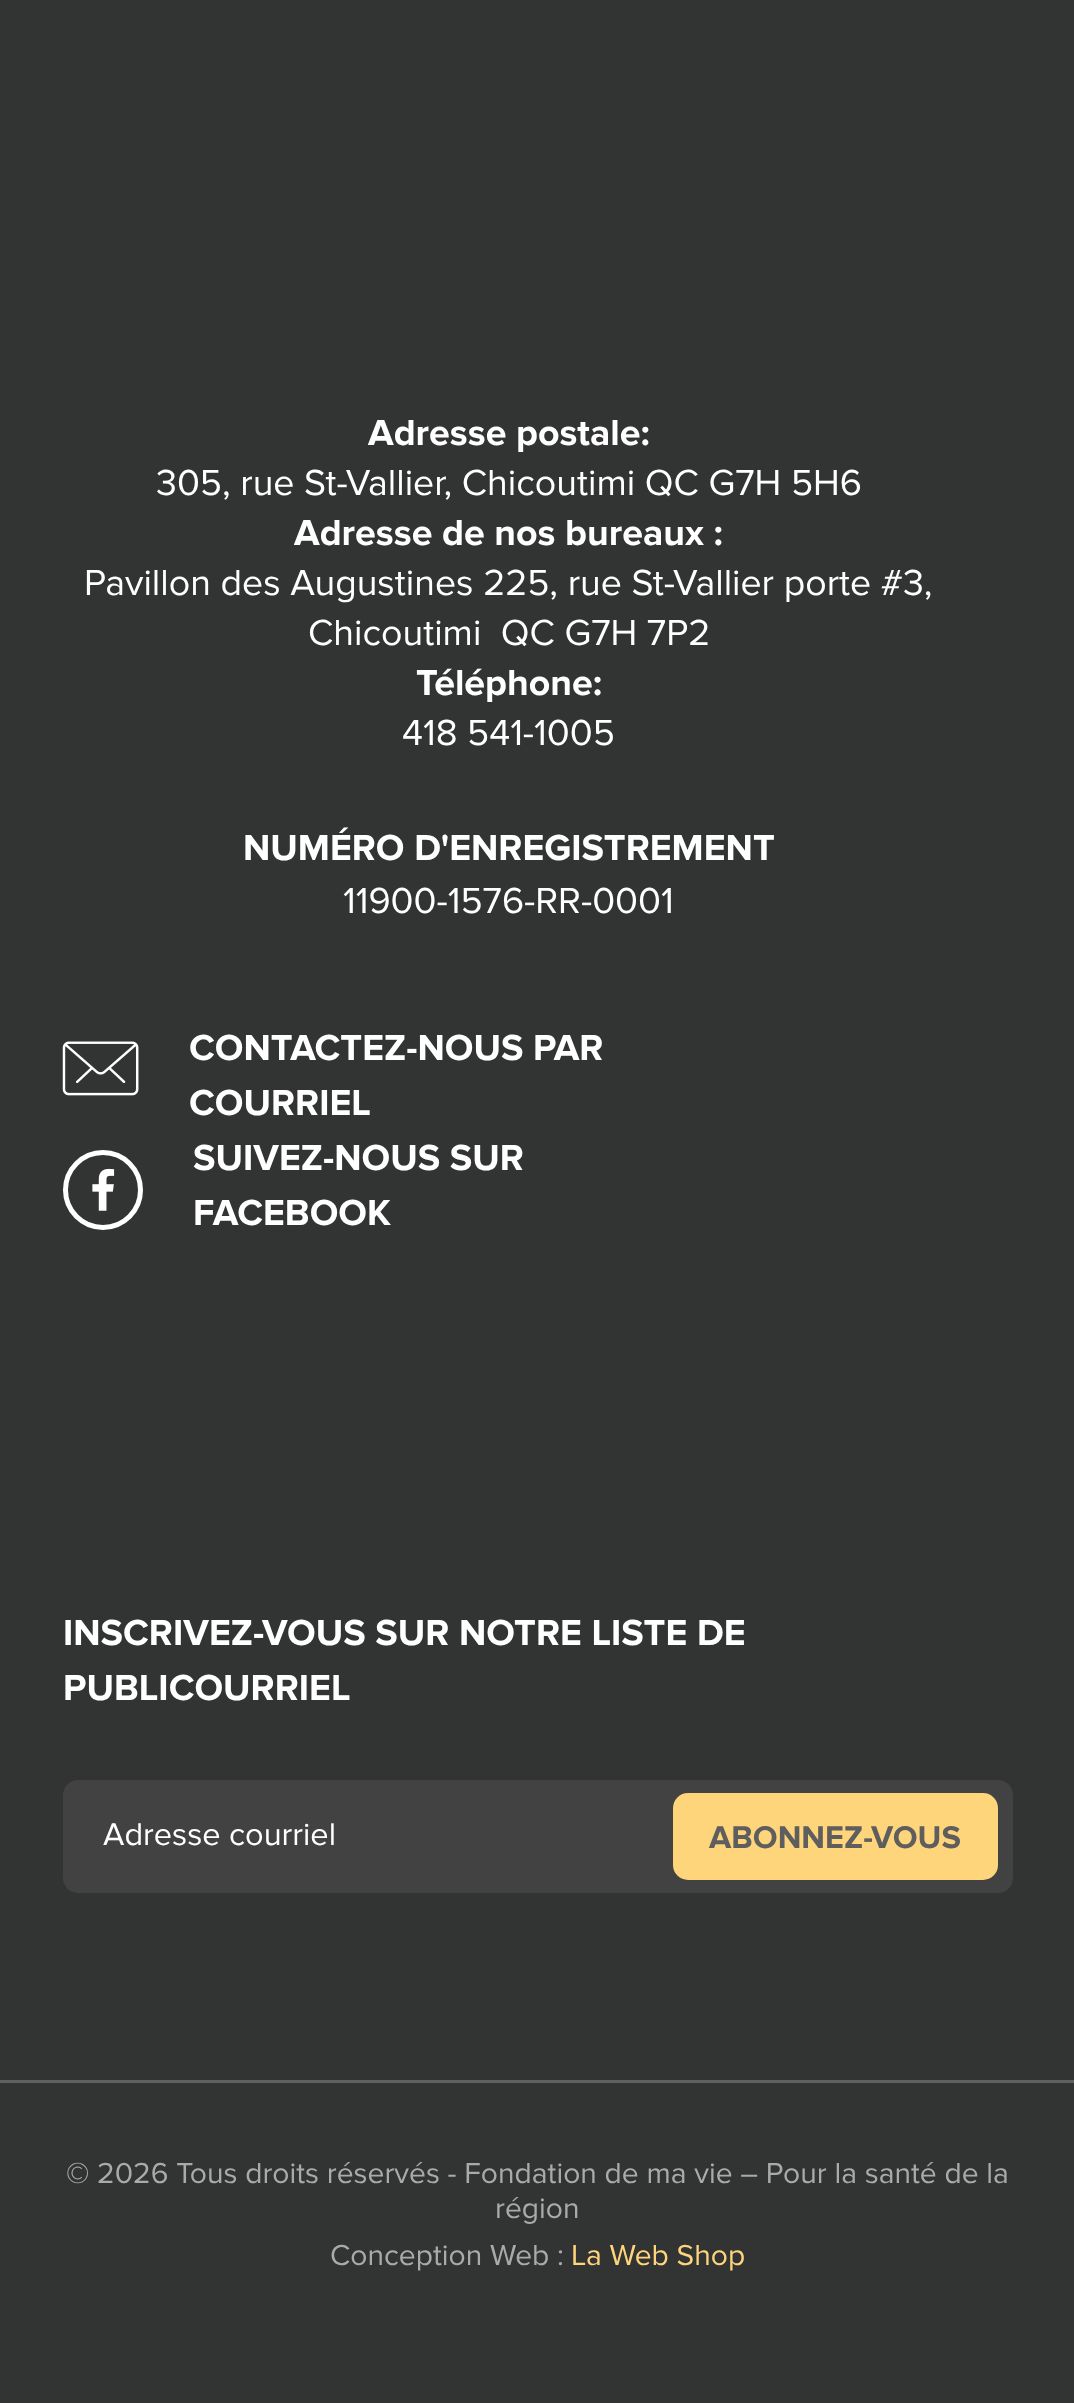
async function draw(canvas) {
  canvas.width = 1074
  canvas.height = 2403
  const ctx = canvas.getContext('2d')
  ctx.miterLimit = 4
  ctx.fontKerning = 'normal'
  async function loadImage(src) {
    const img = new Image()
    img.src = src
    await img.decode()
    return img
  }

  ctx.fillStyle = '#323333'
  ctx.fillRect(0, 0, 1074, 2403)
  ctx.font = '37.5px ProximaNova'
  ctx.fillStyle = '#fff'
  ctx.fillText('Adresse postale:', 368, 445)
  ctx.font = '37.5px "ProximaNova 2"'
  ctx.fillText('305, rue St-Vallier, Chicoutimi QC G7H 5H6', 156, 495)
  ctx.font = '37.5px ProximaNova'
  ctx.fillText('Adresse de nos bureaux :', 294, 545)
  ctx.font = '37.5px "ProximaNova 2"'
  ctx.fillText('Pavillon des Augustines 225, rue St-Vallier porte #3,', 84, 595)
  ctx.fillText('Chicoutimi  QC G7H 7P2', 308, 645)
  ctx.font = '37.5px ProximaNova'
  ctx.fillText('Téléphone:', 416, 695)
  ctx.font = '37.5px "ProximaNova 2"'
  ctx.fillText('418 541-1005', 402, 745)
  ctx.font = '37.5px ProximaNova'
  ctx.fillText('NUMÉRO D\'ENREGISTREMENT', 243, 860)
  ctx.font = '37.5px "ProximaNova 2"'
  ctx.fillText('11900-1576-RR-0001', 343, 913)
  ctx.drawImage(await loadImage('image0.png'), 62, 1041, 77, 55)
  ctx.font = '37.5px ProximaNova'
  ctx.fillText('CONTACTEZ-NOUS PAR', 189, 1060)
  ctx.fillText('COURRIEL', 189, 1115)
  ctx.beginPath()
  ctx.arc(103, 1190, 37.5, 0, 2 * Math.PI)
  ctx.strokeStyle = '#fff'
  ctx.lineWidth = 5
  ctx.stroke()
  ctx.drawImage(await loadImage('image1.png'), 92, 1168, 23, 43)
  ctx.fillText('SUIVEZ-NOUS SUR', 193, 1170)
  ctx.fillText('FACEBOOK', 193, 1225)
  ctx.fillText('INSCRIVEZ-VOUS SUR NOTRE LISTE DE', 63, 1645)
  ctx.fillText('PUBLICOURRIEL', 63, 1700)
  ctx.fillStyle = '#424242'
  ctx.beginPath()
  ctx.roundRect(63, 1780, 950, 113, 15)
  ctx.fill()
  ctx.font = '32.5px "ProximaNova 2"'
  ctx.fillStyle = '#fff'
  ctx.fillText('Adresse courriel', 103, 1845)
  ctx.fillStyle = '#fed57b'
  ctx.beginPath()
  ctx.roundRect(673, 1793, 325, 87, 15)
  ctx.fill()
  ctx.font = '32.5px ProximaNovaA'
  ctx.fillStyle = '#5e5e5e'
  ctx.fillText('ABONNEZ-VOUS', 709, 1848)
  ctx.fillStyle = '#606060'
  ctx.fillRect(0, 2080, 1074, 3)
  ctx.font = '30px "ProximaNova 2"'
  ctx.fillStyle = '#aaa'
  ctx.fillText('© 2026 Tous droits réservés - Fondation de ma vie – Pour la santé de la', 66, 2183)
  ctx.fillText('région', 495, 2218)
  ctx.fillText('Conception Web :', 330, 2265)
  ctx.fillStyle = '#fed57b'
  ctx.fillText('La Web Shop', 571, 2265)
}

draw(document.querySelector('canvas'))
